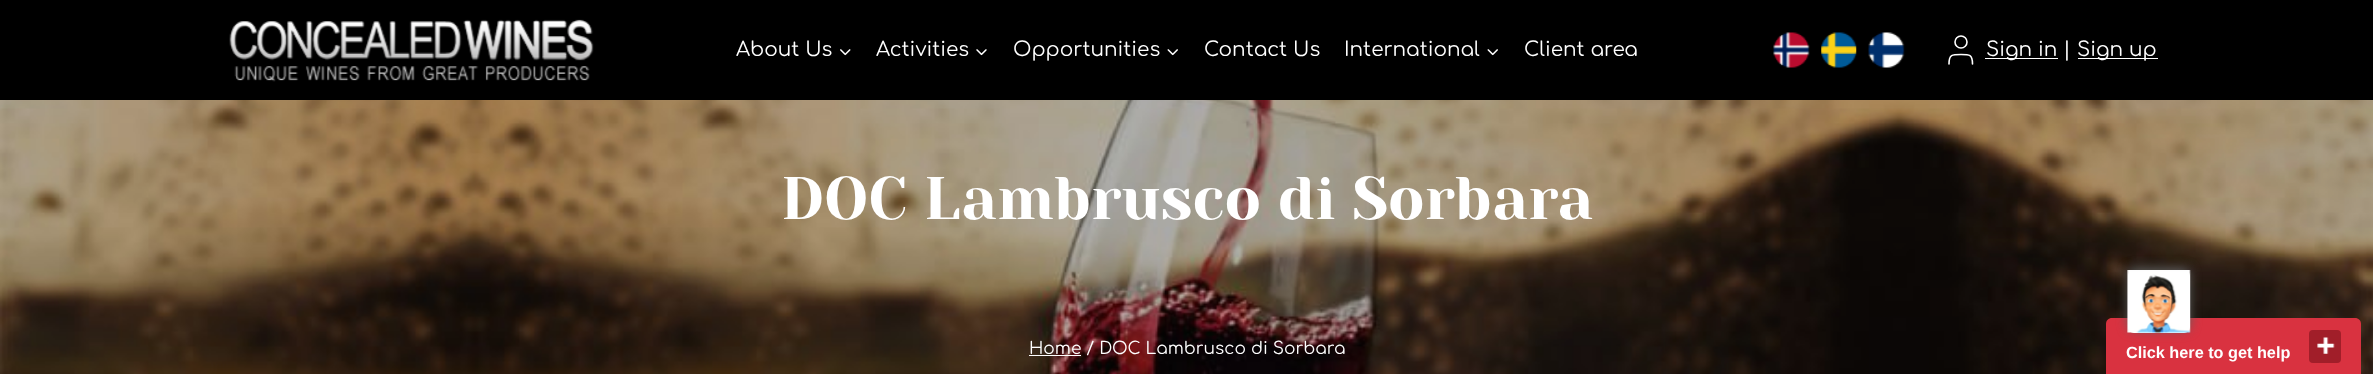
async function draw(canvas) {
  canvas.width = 2373
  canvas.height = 374
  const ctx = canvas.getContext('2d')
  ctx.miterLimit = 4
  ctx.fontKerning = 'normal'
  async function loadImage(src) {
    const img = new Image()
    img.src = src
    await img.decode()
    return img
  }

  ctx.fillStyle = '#fff'
  ctx.fillRect(0, 0, 2373, 374)
  ctx.fillStyle = '#000'
  ctx.fillRect(0, 0, 2373, 100)
  ctx.drawImage(await loadImage('image0.png'), 229, 19, 365, 63)
  ctx.font = '20px Comfortaa'
  ctx.fillStyle = '#fff'
  ctx.fillText('About Us', 736, 56)
  ctx.drawImage(await loadImage('image1.png'), 840, 49, 11, 7)
  ctx.fillText('Activities', 876, 56)
  ctx.drawImage(await loadImage('image2.png'), 976, 49, 11, 7)
  ctx.fillText('Opportunities', 1013, 56)
  ctx.drawImage(await loadImage('image3.png'), 1167, 49, 11, 7)
  ctx.fillText('Contact Us', 1204, 56)
  ctx.fillText('International', 1344, 56)
  ctx.drawImage(await loadImage('image3.png'), 1487, 49, 11, 7)
  ctx.fillText('Client area', 1524, 56)
  ctx.drawImage(await loadImage('image4.png'), 1773, 32, 37, 36)
  ctx.drawImage(await loadImage('image5.png'), 1821, 32, 36, 36)
  ctx.drawImage(await loadImage('image6.png'), 1868, 32, 37, 36)
  ctx.beginPath()
  ctx.moveTo(1972.5, 64)
  ctx.bezierCurveTo(1972.5, 54.5, 1969.5, 54.5, 1961, 54.5)
  ctx.bezierCurveTo(1952, 54.5, 1949, 54.5, 1949, 64)
  ctx.strokeStyle = '#fff'
  ctx.lineWidth = 1.6
  ctx.lineCap = 'round'
  ctx.lineJoin = 'round'
  ctx.stroke()
  ctx.beginPath()
  ctx.arc(1961, 42, 6, 0, 2 * Math.PI)
  ctx.stroke()
  ctx.fillRect(1985, 58, 73, 1)
  ctx.fillText('Sign in', 1986, 56)
  ctx.fillText('|', 2063, 56)
  ctx.fillRect(2078, 58, 80, 1)
  ctx.fillText('Sign up', 2077, 56)
  ctx.drawImage(await loadImage('image7.png'), 0, 100, 2373, 274)
  ctx.font = '60px Yeseva One'
  ctx.fillText('DOC Lambrusco di Sorbara', 781, 219)
  ctx.fillRect(1029, 355, 52, 1)
  ctx.font = '17px Comfortaa'
  ctx.fillText('Home / DOC Lambrusco di Sorbara', 1029, 354)
  ctx.fillStyle = '#d93240'
  ctx.beginPath()
  ctx.moveTo(2112, 318)
  ctx.lineTo(2355, 318)
  ctx.bezierCurveTo(2358.5, 318, 2361, 320.5, 2361, 324)
  ctx.lineTo(2361, 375)
  ctx.lineTo(2106, 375)
  ctx.lineTo(2106, 324)
  ctx.bezierCurveTo(2106, 320.5, 2108.5, 318, 2112, 318)
  ctx.closePath()
  ctx.fill()
  ctx.fillStyle = '#5f5f5e'
  ctx.filter = 'blur(5.5px)'
  ctx.beginPath()
  ctx.roundRect(2128, 268, 62, 62, 6)
  ctx.fill()
  ctx.filter = 'none'
  ctx.fillStyle = '#fff'
  ctx.beginPath()
  ctx.roundRect(2128, 270, 62, 63, 6)
  ctx.fill()
  ctx.drawImage(await loadImage('image8.png'), 2127, 270, 64, 63)
  ctx.fillStyle = '#a11e29'
  ctx.beginPath()
  ctx.roundRect(2309, 330, 32, 33, 4)
  ctx.fill()
  ctx.drawImage(await loadImage('image9.png'), 2317, 337, 18, 17)
  ctx.font = 'bold 16.25px Liberation Sans'
  ctx.fillStyle = '#fff'
  ctx.fillText('Click here to get help', 2126, 358)
}

draw(document.querySelector('canvas'))
